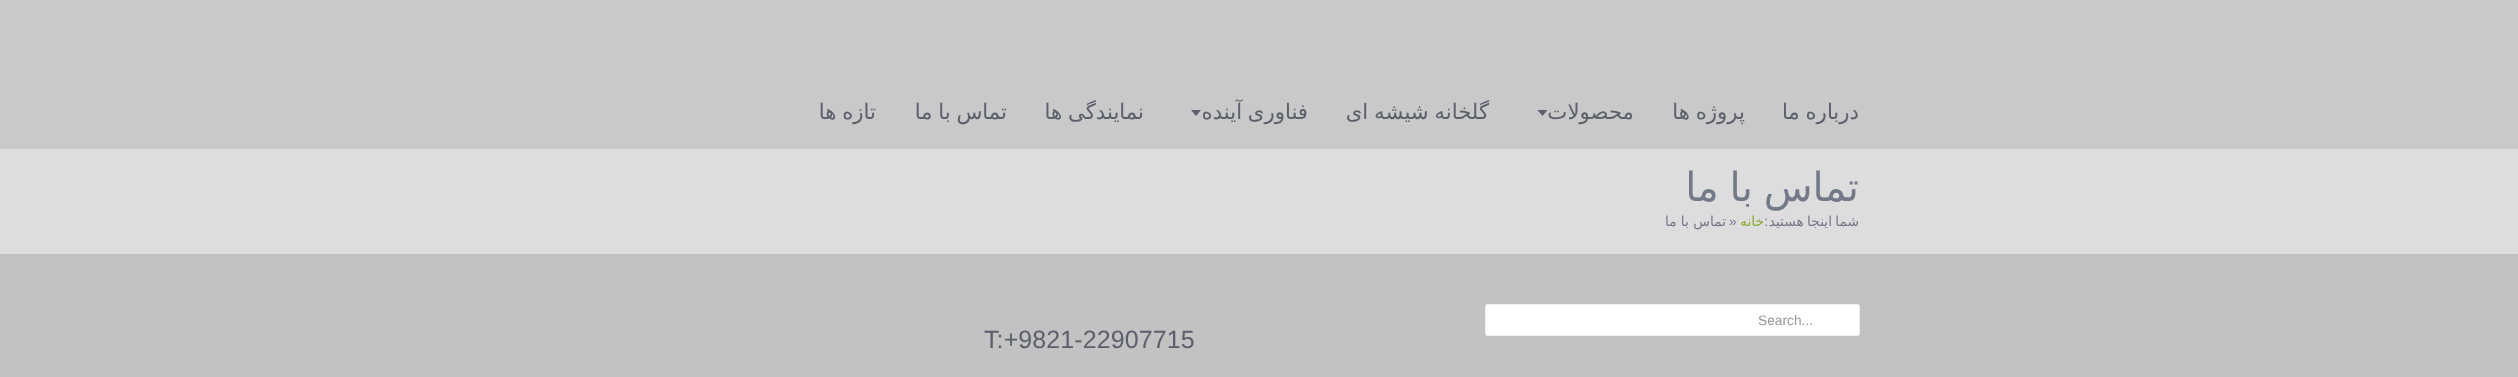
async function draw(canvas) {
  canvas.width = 2518
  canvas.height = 377
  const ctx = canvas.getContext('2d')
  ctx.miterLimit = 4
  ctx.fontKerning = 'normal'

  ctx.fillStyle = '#ddd'
  ctx.fillRect(0, 0, 2518, 377)
  ctx.fillStyle = '#c9c9c9'
  ctx.fillRect(0, 0, 2518, 149)
  ctx.wordSpacing = '-1px'
  ctx.direction = 'rtl'
  ctx.font = '21.25px DejaVu Sans'
  ctx.fillStyle = '#5c606b'
  ctx.fillText('درباره ما', 1859, 119)
  ctx.fillText('پروژه ها', 1745, 119)
  ctx.wordSpacing = '0px'
  ctx.fillText('محصولات', 1634, 119)
  ctx.beginPath()
  ctx.moveTo(1537.5, 110)
  ctx.lineTo(1547.5, 110)
  ctx.lineTo(1542.5, 116)
  ctx.closePath()
  ctx.fill()
  ctx.wordSpacing = '-1px'
  ctx.fillText('گلخانه شیشه ای', 1489, 119)
  ctx.fillText('فناوری آینده', 1308, 119)
  ctx.beginPath()
  ctx.moveTo(1191, 110)
  ctx.lineTo(1201, 110)
  ctx.lineTo(1196, 116)
  ctx.closePath()
  ctx.fill()
  ctx.fillText('نمایندگی ها', 1144, 119)
  ctx.fillText('تماس با ما', 1007, 119)
  ctx.fillText('تازه ها', 876, 119)
  ctx.letterSpacing = '0.1px'
  ctx.wordSpacing = '-2px'
  ctx.font = '40px DejaVu Sans'
  ctx.fillStyle = '#737988'
  ctx.fillText('تماس با ما', 1859, 201)
  ctx.letterSpacing = '0px'
  ctx.wordSpacing = '-1px'
  ctx.font = '13.75px DejaVu Sans'
  ctx.fillText('شما اینجا هستید', 1859, 226)
  ctx.wordSpacing = '0px'
  ctx.font = '13.75px Liberation Sans'
  ctx.fillText(':', 1768, 226)
  ctx.font = '13.75px DejaVu Sans'
  ctx.fillStyle = '#88ac2e'
  ctx.fillText('خانه', 1764, 226)
  ctx.direction = 'ltr'
  ctx.font = '13.75px Liberation Sans'
  ctx.fillStyle = '#737988'
  ctx.fillText('»', 1729, 226)
  ctx.direction = 'rtl'
  ctx.font = '13.75px DejaVu Sans'
  ctx.fillText('تماس با ما', 1726, 226)
  ctx.fillStyle = '#c2c2c2'
  ctx.fillRect(0, 254, 2518, 123)
  ctx.fillStyle = '#fff'
  ctx.beginPath()
  ctx.roundRect(1485.5, 304.5, 374, 31, 2)
  ctx.fill()
  ctx.strokeStyle = '#f0f0f0'
  ctx.stroke()
  ctx.direction = 'ltr'
  ctx.font = '13.75px Liberation Sans'
  ctx.fillStyle = '#999'
  ctx.fillText('Search...', 1758, 325)
  ctx.letterSpacing = '0.1px'
  ctx.font = '25px Liberation Sans'
  ctx.fillStyle = '#5c606b'
  ctx.fillText('T:+9821-22907715', 984, 348)
}

draw(document.querySelector('canvas'))
